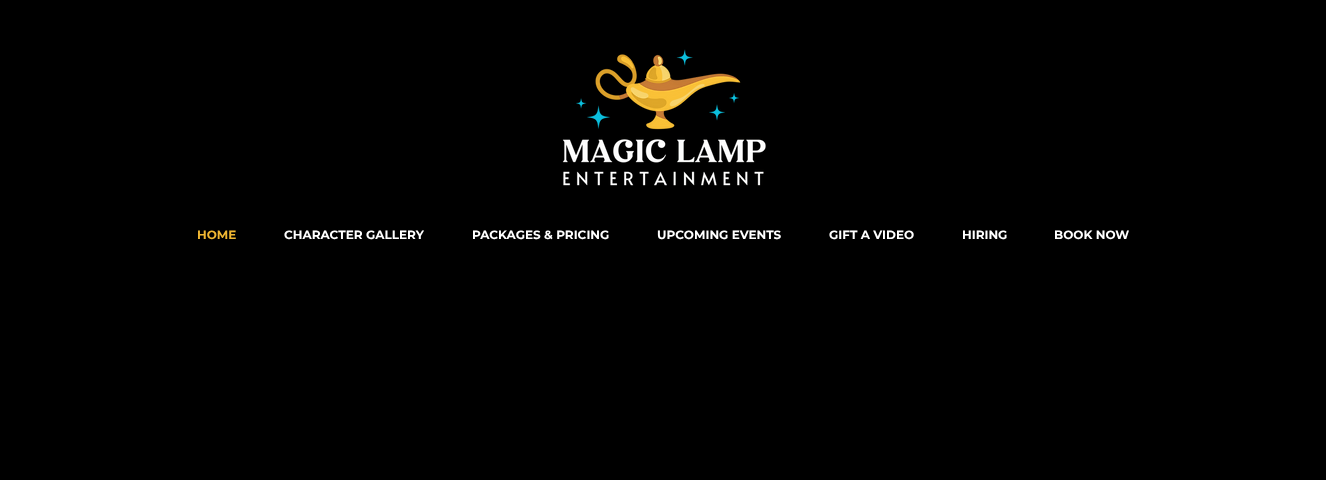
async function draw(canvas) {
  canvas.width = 1326
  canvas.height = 480
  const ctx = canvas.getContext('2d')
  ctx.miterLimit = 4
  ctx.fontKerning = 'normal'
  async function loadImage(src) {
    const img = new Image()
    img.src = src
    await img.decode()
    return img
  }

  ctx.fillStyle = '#000'
  ctx.fillRect(0, 0, 1326, 480)
  ctx.drawImage(await loadImage('image0.png'), 562, 49, 204, 137)
  ctx.font = 'bold 12px Montserrat'
  ctx.fillStyle = '#f0b732'
  ctx.fillText('HOME', 197, 239)
  ctx.fillStyle = '#fff'
  ctx.fillText('CHARACTER GALLERY', 284, 239)
  ctx.fillText('PACKAGES & PRICING', 472, 239)
  ctx.fillText('UPCOMING EVENTS', 657, 239)
  ctx.fillText('GIFT A VIDEO', 829, 239)
  ctx.fillText('HIRING', 962, 239)
  ctx.fillText('BOOK NOW', 1054, 239)
}

draw(document.querySelector('canvas'))
